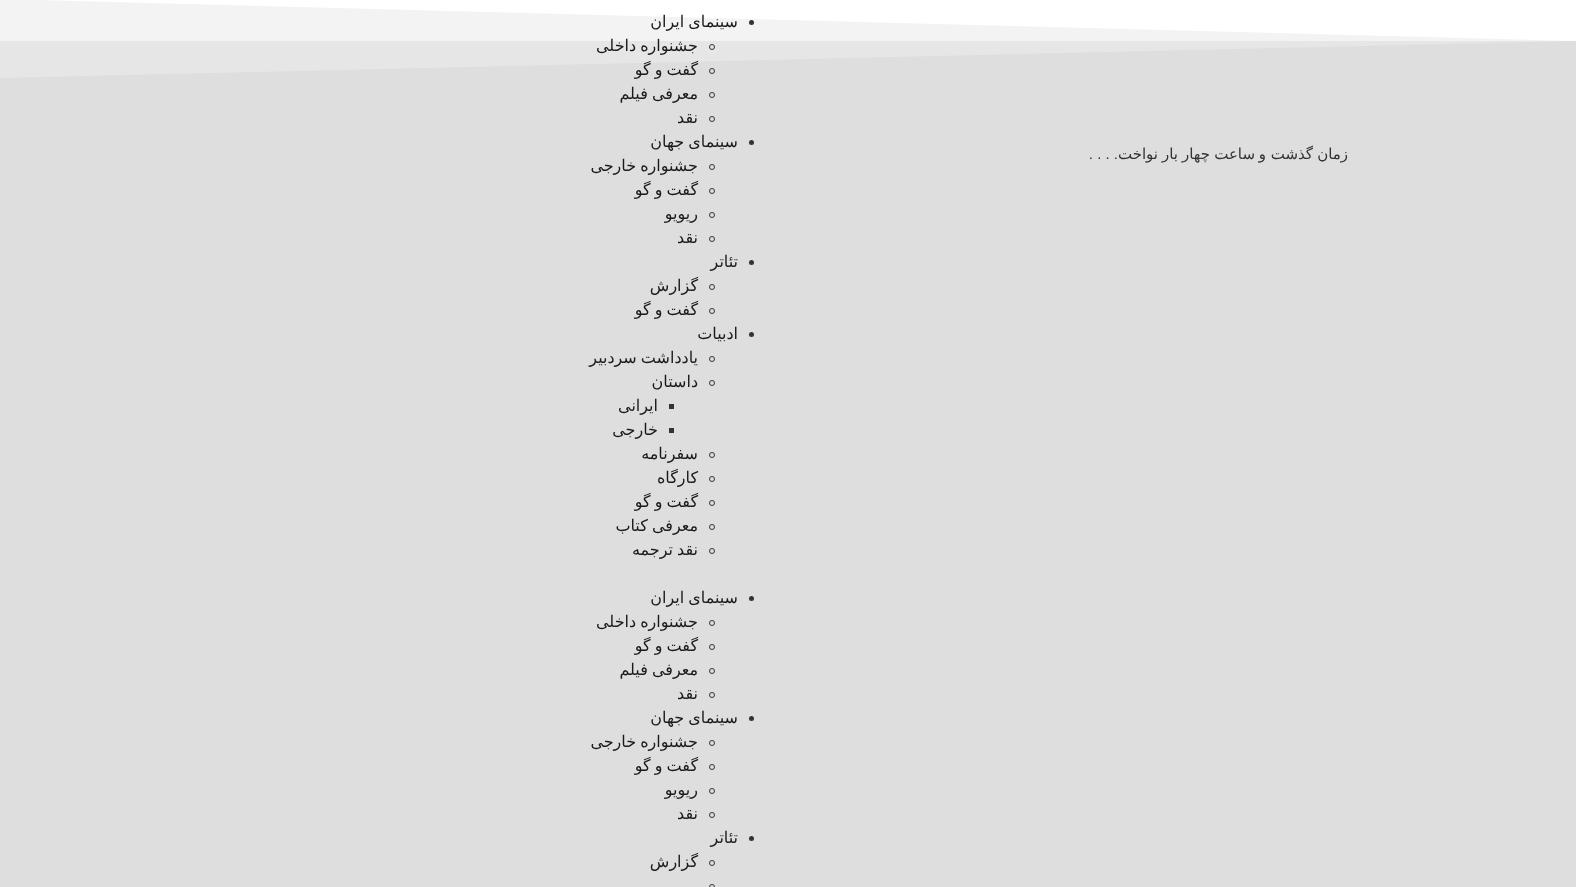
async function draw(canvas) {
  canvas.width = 1576
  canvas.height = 887
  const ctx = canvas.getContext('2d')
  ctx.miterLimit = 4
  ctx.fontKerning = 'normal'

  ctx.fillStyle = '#dedede'
  ctx.fillRect(0, 0, 1576, 887)
  ctx.fillStyle = '#efefef'
  ctx.fillRect(0, 0, 1576, 41)
  ctx.fillStyle = '#fff'
  ctx.beginPath()
  ctx.moveTo(-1, -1)
  ctx.lineTo(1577, -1)
  ctx.lineTo(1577, 41)
  ctx.closePath()
  ctx.fill()
  ctx.fillStyle = '#ffffff40'
  ctx.beginPath()
  ctx.moveTo(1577, -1)
  ctx.lineTo(-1, -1)
  ctx.lineTo(-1, 78)
  ctx.lineTo(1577, 41)
  ctx.closePath()
  ctx.fill()
  ctx.direction = 'rtl'
  ctx.font = '15px DejaVu Sans'
  ctx.fillStyle = '#333'
  ctx.fillText('زمان', 1348, 159)
  ctx.fillText('گذشت', 1313, 159)
  ctx.fillText('و', 1266, 159)
  ctx.fillText('ساعت', 1255, 159)
  ctx.fillText('چهار', 1210, 159)
  ctx.fillText('بار', 1178, 159)
  ctx.fillText('نواخت', 1158, 159)
  ctx.font = '15px Liberation Sans'
  ctx.fillText('. . . .', 1118, 159)
  ctx.beginPath()
  ctx.arc(751.5, 22.5, 2.5, 0, 2 * Math.PI)
  ctx.fill()
  ctx.wordSpacing = '-1px'
  ctx.font = '16px DejaVu Sans'
  ctx.fillStyle = '#1a1a1a'
  ctx.fillText('سینمای ایران', 738, 27)
  ctx.beginPath()
  ctx.arc(712, 47, 2.5, 0, 2 * Math.PI)
  ctx.strokeStyle = '#333'
  ctx.stroke()
  ctx.fillText('جشنواره داخلی', 698, 51)
  ctx.beginPath()
  ctx.arc(712, 71, 2.5, 0, 2 * Math.PI)
  ctx.stroke()
  ctx.fillText('گفت و گو', 698, 75)
  ctx.beginPath()
  ctx.arc(712, 95, 2.5, 0, 2 * Math.PI)
  ctx.stroke()
  ctx.fillText('معرفی فیلم', 698, 99)
  ctx.beginPath()
  ctx.arc(712, 119, 2.5, 0, 2 * Math.PI)
  ctx.stroke()
  ctx.wordSpacing = '0px'
  ctx.fillText('نقد', 698, 123)
  ctx.fillStyle = '#333'
  ctx.beginPath()
  ctx.arc(751.5, 142.5, 2.5, 0, 2 * Math.PI)
  ctx.fill()
  ctx.wordSpacing = '-1px'
  ctx.fillStyle = '#1a1a1a'
  ctx.fillText('سینمای جهان', 738, 147)
  ctx.beginPath()
  ctx.arc(712, 167, 2.5, 0, 2 * Math.PI)
  ctx.stroke()
  ctx.fillText('جشنواره خارجی', 698, 171)
  ctx.beginPath()
  ctx.arc(712, 191, 2.5, 0, 2 * Math.PI)
  ctx.stroke()
  ctx.fillText('گفت و گو', 698, 195)
  ctx.beginPath()
  ctx.arc(712, 215, 2.5, 0, 2 * Math.PI)
  ctx.stroke()
  ctx.wordSpacing = '0px'
  ctx.fillText('ریویو', 698, 219)
  ctx.beginPath()
  ctx.arc(712, 239, 2.5, 0, 2 * Math.PI)
  ctx.stroke()
  ctx.fillText('نقد', 698, 243)
  ctx.fillStyle = '#333'
  ctx.beginPath()
  ctx.arc(751.5, 262.5, 2.5, 0, 2 * Math.PI)
  ctx.fill()
  ctx.fillStyle = '#1a1a1a'
  ctx.fillText('تئاتر', 738, 267)
  ctx.beginPath()
  ctx.arc(712, 287, 2.5, 0, 2 * Math.PI)
  ctx.stroke()
  ctx.fillText('گزارش', 698, 291)
  ctx.beginPath()
  ctx.arc(712, 311, 2.5, 0, 2 * Math.PI)
  ctx.stroke()
  ctx.wordSpacing = '-1px'
  ctx.fillText('گفت و گو', 698, 315)
  ctx.fillStyle = '#333'
  ctx.beginPath()
  ctx.arc(751.5, 334.5, 2.5, 0, 2 * Math.PI)
  ctx.fill()
  ctx.wordSpacing = '0px'
  ctx.fillStyle = '#1a1a1a'
  ctx.fillText('ادبیات', 738, 339)
  ctx.beginPath()
  ctx.arc(712, 359, 2.5, 0, 2 * Math.PI)
  ctx.stroke()
  ctx.wordSpacing = '-1px'
  ctx.fillText('یادداشت سردبیر', 698, 363)
  ctx.beginPath()
  ctx.arc(712, 383, 2.5, 0, 2 * Math.PI)
  ctx.stroke()
  ctx.wordSpacing = '0px'
  ctx.fillText('داستان', 698, 387)
  ctx.fillStyle = '#333'
  ctx.fillRect(669, 404, 5, 5)
  ctx.fillStyle = '#1a1a1a'
  ctx.fillText('ایرانی', 658, 411)
  ctx.fillStyle = '#333'
  ctx.fillRect(669, 428, 5, 5)
  ctx.fillStyle = '#1a1a1a'
  ctx.fillText('خارجی', 658, 435)
  ctx.beginPath()
  ctx.arc(712, 455, 2.5, 0, 2 * Math.PI)
  ctx.stroke()
  ctx.fillText('سفرنامه', 698, 459)
  ctx.beginPath()
  ctx.arc(712, 479, 2.5, 0, 2 * Math.PI)
  ctx.stroke()
  ctx.fillText('کارگاه', 698, 483)
  ctx.beginPath()
  ctx.arc(712, 503, 2.5, 0, 2 * Math.PI)
  ctx.stroke()
  ctx.wordSpacing = '-1px'
  ctx.fillText('گفت و گو', 698, 507)
  ctx.beginPath()
  ctx.arc(712, 527, 2.5, 0, 2 * Math.PI)
  ctx.stroke()
  ctx.fillText('معرفی کتاب', 698, 531)
  ctx.beginPath()
  ctx.arc(712, 551, 2.5, 0, 2 * Math.PI)
  ctx.stroke()
  ctx.fillText('نقد ترجمه', 698, 555)
  ctx.fillStyle = '#333'
  ctx.beginPath()
  ctx.arc(751.5, 598.5, 2.5, 0, 2 * Math.PI)
  ctx.fill()
  ctx.fillStyle = '#1a1a1a'
  ctx.fillText('سینمای ایران', 738, 603)
  ctx.beginPath()
  ctx.arc(712, 623, 2.5, 0, 2 * Math.PI)
  ctx.stroke()
  ctx.fillText('جشنواره داخلی', 698, 627)
  ctx.beginPath()
  ctx.arc(712, 647, 2.5, 0, 2 * Math.PI)
  ctx.stroke()
  ctx.fillText('گفت و گو', 698, 651)
  ctx.beginPath()
  ctx.arc(712, 671, 2.5, 0, 2 * Math.PI)
  ctx.stroke()
  ctx.fillText('معرفی فیلم', 698, 675)
  ctx.beginPath()
  ctx.arc(712, 695, 2.5, 0, 2 * Math.PI)
  ctx.stroke()
  ctx.wordSpacing = '0px'
  ctx.fillText('نقد', 698, 699)
  ctx.fillStyle = '#333'
  ctx.beginPath()
  ctx.arc(751.5, 718.5, 2.5, 0, 2 * Math.PI)
  ctx.fill()
  ctx.wordSpacing = '-1px'
  ctx.fillStyle = '#1a1a1a'
  ctx.fillText('سینمای جهان', 738, 723)
  ctx.beginPath()
  ctx.arc(712, 743, 2.5, 0, 2 * Math.PI)
  ctx.stroke()
  ctx.fillText('جشنواره خارجی', 698, 747)
  ctx.beginPath()
  ctx.arc(712, 767, 2.5, 0, 2 * Math.PI)
  ctx.stroke()
  ctx.fillText('گفت و گو', 698, 771)
  ctx.beginPath()
  ctx.arc(712, 791, 2.5, 0, 2 * Math.PI)
  ctx.stroke()
  ctx.wordSpacing = '0px'
  ctx.fillText('ریویو', 698, 795)
  ctx.beginPath()
  ctx.arc(712, 815, 2.5, 0, 2 * Math.PI)
  ctx.stroke()
  ctx.fillText('نقد', 698, 819)
  ctx.fillStyle = '#333'
  ctx.beginPath()
  ctx.arc(751.5, 838.5, 2.5, 0, 2 * Math.PI)
  ctx.fill()
  ctx.fillStyle = '#1a1a1a'
  ctx.fillText('تئاتر', 738, 843)
  ctx.beginPath()
  ctx.arc(712, 863, 2.5, 0, 2 * Math.PI)
  ctx.stroke()
  ctx.fillText('گزارش', 698, 867)
  ctx.beginPath()
  ctx.arc(712, 887, 2.5, 0, 2 * Math.PI)
  ctx.stroke()
}

draw(document.querySelector('canvas'))
